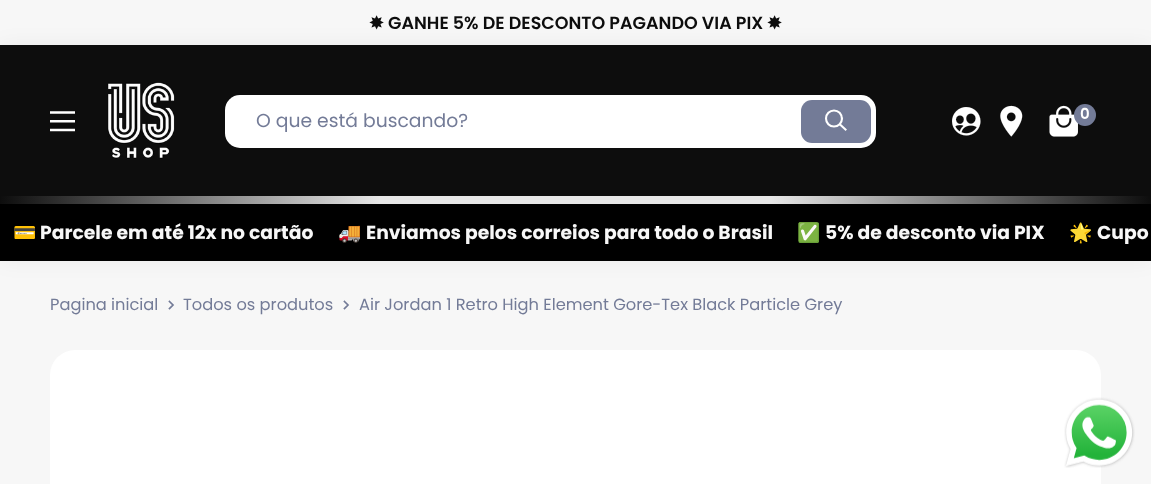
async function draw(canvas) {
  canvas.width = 1151
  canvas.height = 484
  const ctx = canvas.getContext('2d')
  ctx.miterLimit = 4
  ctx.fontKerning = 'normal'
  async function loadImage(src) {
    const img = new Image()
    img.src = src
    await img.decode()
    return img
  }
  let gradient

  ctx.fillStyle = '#f7f7f7'
  ctx.fillRect(0, 0, 1151, 484)
  ctx.font = 'bold 17.5px DejaVu Sans'
  ctx.fillStyle = '#0d0d0d'
  ctx.fillText('✸', 369, 29)
  ctx.font = '600 17.5px Poppins'
  ctx.fillText('GANHE 5% DE DESCONTO PAGANDO VIA PIX', 388, 29)
  ctx.font = 'bold 17.5px DejaVu Sans'
  ctx.fillText('✸', 767, 29)
  ctx.fillStyle = '#0000000d'
  ctx.filter = 'blur(10px)'
  ctx.beginPath()
  ctx.rect(0, 45, 1151, 216)
  ctx.fill()
  ctx.filter = 'none'
  ctx.fillStyle = '#0d0d0d'
  ctx.fillRect(0, 45, 1151, 151)
  ctx.drawImage(await loadImage('image0.png'), 50, 111, 25, 21)
  ctx.drawImage(await loadImage('image1.png'), 107, 82, 68, 77)
  ctx.fillStyle = '#fff'
  ctx.beginPath()
  ctx.roundRect(225, 95, 651, 53, 15)
  ctx.fill()
  ctx.font = '18.75px Poppins'
  ctx.fillStyle = '#737b97'
  ctx.fillText('O que está buscando?', 256, 127)
  ctx.beginPath()
  ctx.roundRect(801, 100, 70, 43, 11)
  ctx.fill()
  ctx.beginPath()
  ctx.moveTo(845.5, 129.5)
  ctx.lineTo(840, 124.5)
  ctx.strokeStyle = '#fff'
  ctx.lineWidth = 2.1
  ctx.lineCap = 'square'
  ctx.stroke()
  ctx.beginPath()
  ctx.arc(834, 118.5, 8, 0, 2 * Math.PI)
  ctx.stroke()
  ctx.drawImage(await loadImage('image2.png'), 952, 107, 29, 29)
  ctx.drawImage(await loadImage('image3.png'), 1000, 105, 23, 32)
  ctx.drawImage(await loadImage('image4.png'), 1049, 105, 29, 32)
  ctx.beginPath()
  ctx.arc(1085, 115, 11, 0, 2 * Math.PI)
  ctx.fill()
  ctx.font = '600 15px Poppins'
  ctx.fillStyle = '#fff'
  ctx.fillText('0', 1080, 119)
  gradient = ctx.createLinearGradient(0, 200, 1151, 200)
  gradient.addColorStop(0, '#0d0d0d')
  gradient.addColorStop(0.33, '#e7e7e7')
  gradient.addColorStop(0.67, '#e7e7e7')
  gradient.addColorStop(1, '#0d0d0d')
  ctx.fillStyle = gradient
  ctx.fillRect(0, 196, 1151, 8)
  ctx.fillStyle = '#000'
  ctx.fillRect(0, 204, 1151, 57)
  ctx.font = 'bold 18.75px Noto Color Emoji'
  ctx.fillStyle = '#f7f7f7'
  ctx.fillText('💳', 13, 239)
  ctx.font = 'bold 18.75px Poppins'
  ctx.fillText('Parcele em até 12x no cartão', 40, 239)
  ctx.font = 'bold 18.75px Noto Color Emoji'
  ctx.fillText('🚚', 338, 239)
  ctx.font = 'bold 18.75px Poppins'
  ctx.fillText('Enviamos pelos correios para todo o Brasil', 366, 239)
  ctx.font = 'bold 18.75px Noto Color Emoji'
  ctx.fillText('✅', 797, 239)
  ctx.font = 'bold 18.75px Poppins'
  ctx.fillText('5% de desconto via PIX', 825, 239)
  ctx.font = 'bold 18.75px Noto Color Emoji'
  ctx.fillText('🌟', 1069, 239)
  ctx.font = 'bold 18.75px Poppins'
  ctx.fillText('Cupo', 1097, 239)
  ctx.font = '16.25px Poppins'
  ctx.fillStyle = '#737b97'
  ctx.fillText('Pagina inicial', 50, 310)
  ctx.beginPath()
  ctx.moveTo(169.5, 301.5)
  ctx.lineTo(173, 305)
  ctx.lineTo(169.5, 308.5)
  ctx.strokeStyle = '#737b97'
  ctx.lineWidth = 1.7
  ctx.stroke()
  ctx.fillText('Todos os produtos', 183, 310)
  ctx.beginPath()
  ctx.moveTo(344.5, 301.5)
  ctx.lineTo(348, 305)
  ctx.lineTo(344.5, 308.5)
  ctx.stroke()
  ctx.fillText('Air Jordan 1 Retro High Element Gore-Tex Black Particle Grey', 359, 310)
  ctx.fillStyle = '#fff'
  ctx.beginPath()
  ctx.roundRect(50, 350, 1051, 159, 25)
  ctx.fill()
  ctx.drawImage(await loadImage('image5.png'), 1064, 397, 71, 71)
}

draw(document.querySelector('canvas'))
